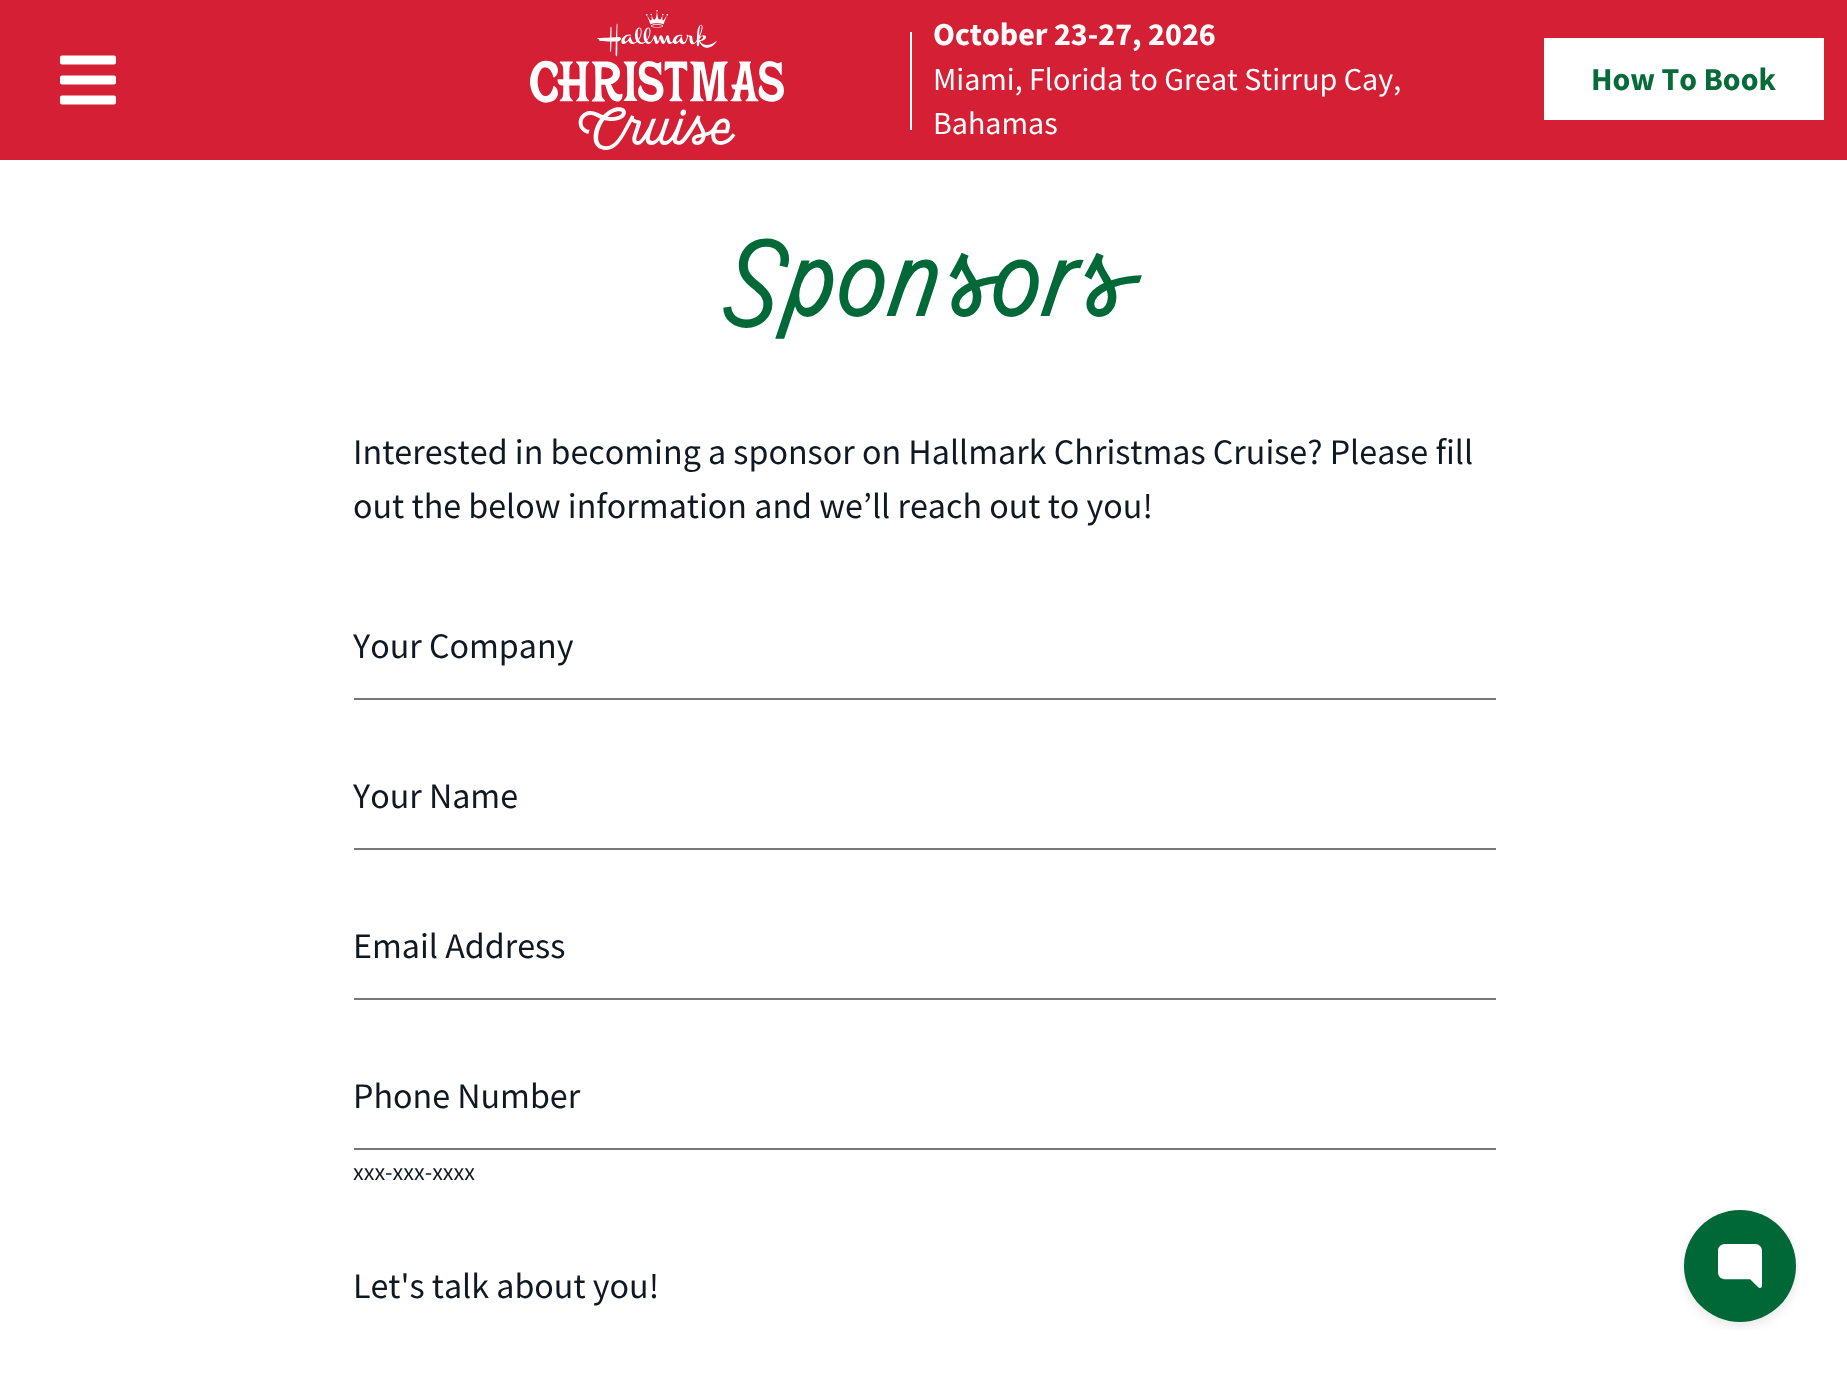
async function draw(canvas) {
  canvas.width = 1847
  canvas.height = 1377
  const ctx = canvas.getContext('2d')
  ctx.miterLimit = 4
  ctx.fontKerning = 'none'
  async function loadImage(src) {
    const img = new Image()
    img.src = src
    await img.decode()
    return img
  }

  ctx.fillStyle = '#fff'
  ctx.fillRect(0, 0, 1847, 1377)
  ctx.fillStyle = '#d51f35'
  ctx.fillRect(0, 0, 1847, 160)
  ctx.drawImage(await loadImage('image0.png'), 60, 55, 56, 50)
  ctx.drawImage(await loadImage('image1.png'), 530, 10, 254, 140)
  ctx.fillStyle = '#fff'
  ctx.fillRect(910, 32, 2, 98)
  ctx.font = 'bold 32px Source Sans Pro'
  ctx.fillText('October 23-27, 2026', 933, 45)
  ctx.font = '32px Source Sans Pro'
  ctx.fillText('Miami, Florida to Great Stirrup Cay,', 933, 90)
  ctx.fillText('Bahamas', 933, 134)
  ctx.fillRect(1544, 38, 280, 82)
  ctx.font = 'bold 32px Source Sans Pro'
  ctx.fillStyle = '#066b38'
  ctx.fillText('How To Book', 1591, 90)
  ctx.font = '111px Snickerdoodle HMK'
  ctx.fillStyle = '#006937'
  ctx.fillText('Sponsors', 724, 316)
  ctx.font = '36px Source Sans Pro'
  ctx.fillStyle = '#101821'
  ctx.fillText('Interested in becoming a sponsor on Hallmark Christmas Cruise? Please fill', 353, 464)
  ctx.fillText('out the below information and we’ll reach out to you!', 353, 518)
  ctx.fillText('Your Company', 353, 658)
  ctx.fillStyle = '#777'
  ctx.fillRect(354, 698, 1142, 2)
  ctx.fillStyle = '#101821'
  ctx.fillText('Your Name', 353, 808)
  ctx.fillStyle = '#777'
  ctx.fillRect(354, 848, 1142, 2)
  ctx.fillStyle = '#101821'
  ctx.fillText('Email Address', 353, 958)
  ctx.fillStyle = '#777'
  ctx.fillRect(354, 998, 1142, 2)
  ctx.fillStyle = '#101821'
  ctx.fillText('Phone Number', 353, 1108)
  ctx.fillStyle = '#777'
  ctx.fillRect(354, 1148, 1142, 2)
  ctx.font = '24px Source Sans Pro'
  ctx.fillStyle = '#101821'
  ctx.fillText('xxx-xxx-xxxx', 353, 1180)
  ctx.font = '36px Source Sans Pro'
  ctx.fillText('Let\'s talk about you!', 353, 1298)
  ctx.drawImage(await loadImage('image2.png'), 1680, 1210, 120, 120)
}

draw(document.querySelector('canvas'))
